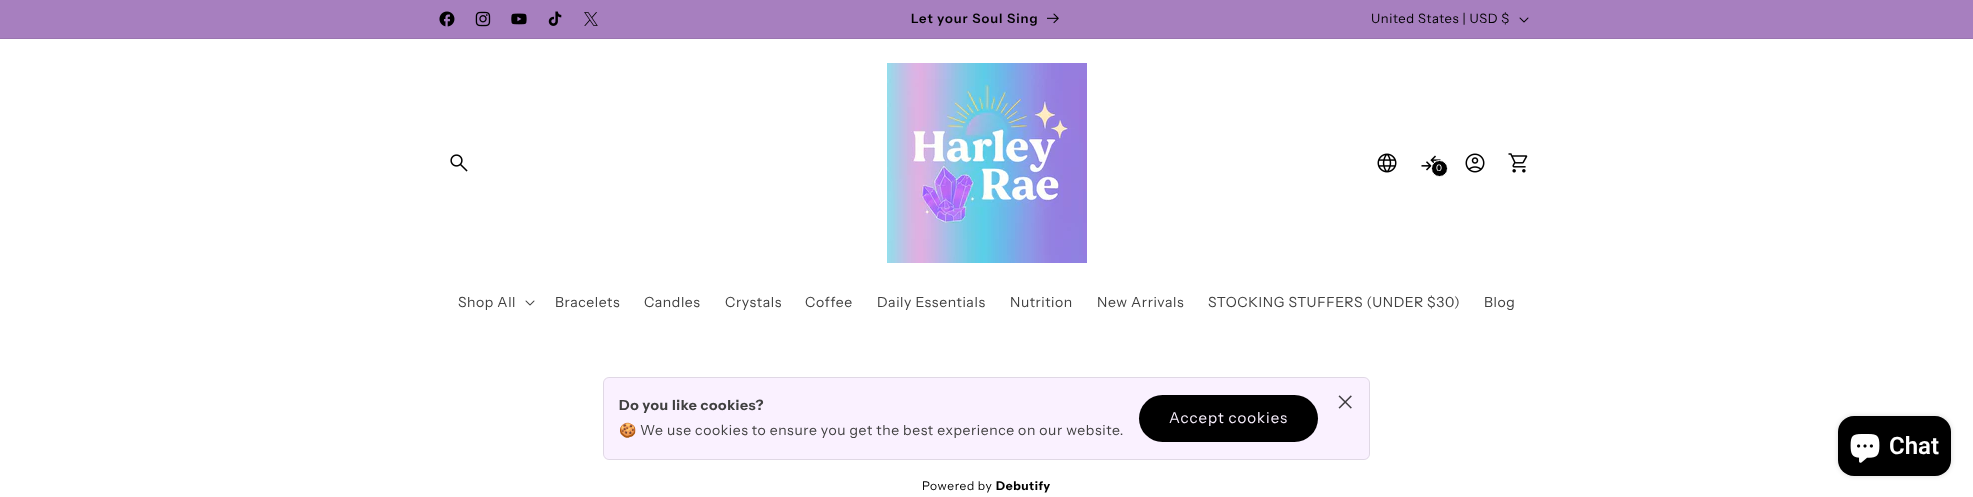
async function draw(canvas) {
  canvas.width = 1973
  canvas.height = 497
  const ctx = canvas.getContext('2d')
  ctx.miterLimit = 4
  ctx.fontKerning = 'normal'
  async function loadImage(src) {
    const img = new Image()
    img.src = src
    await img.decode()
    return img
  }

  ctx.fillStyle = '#fff'
  ctx.fillRect(0, 0, 1973, 497)
  ctx.fillStyle = '#a77fbf'
  ctx.fillRect(0, 0, 1973, 38)
  ctx.fillStyle = '#9a75b0'
  ctx.fillRect(0, 38, 1973, 1)
  ctx.drawImage(await loadImage('image0.png'), 439, 11, 16, 16)
  ctx.drawImage(await loadImage('image1.png'), 475, 11, 16, 16)
  ctx.drawImage(await loadImage('image2.png'), 511, 13, 16, 12)
  ctx.drawImage(await loadImage('image3.png'), 548, 11, 14, 15)
  ctx.drawImage(await loadImage('image4.png'), 584, 12, 14, 14)
  ctx.letterSpacing = '1px'
  ctx.font = '600 13px Instrument Sans'
  ctx.fillStyle = '#000'
  ctx.fillText('Let your Soul Sing', 911, 23)
  ctx.drawImage(await loadImage('image5.png'), 1047, 13, 12, 11)
  ctx.letterSpacing = '0.6px'
  ctx.font = '13px Instrument Sans'
  ctx.fillText('United States | USD $', 1371, 23)
  ctx.drawImage(await loadImage('image6.png'), 1519, 17, 10, 6)
  ctx.drawImage(await loadImage('image7.png'), 450, 154, 18, 18)
  ctx.drawImage(await loadImage('image8.png'), 887, 63, 200, 200)
  ctx.drawImage(await loadImage('image9.png'), 1377, 153, 20, 20)
  ctx.drawImage(await loadImage('image10.png'), 1421, 155, 20, 16)
  ctx.beginPath()
  ctx.arc(1439.5, 168.5, 8, 0, 2 * Math.PI)
  ctx.fill()
  ctx.strokeStyle = '#fff'
  ctx.stroke()
  ctx.font = '9px Instrument Sans'
  ctx.fillStyle = '#fff'
  ctx.fillText('0', 1436, 171)
  ctx.drawImage(await loadImage('image11.png'), 1465, 153, 20, 20)
  ctx.drawImage(await loadImage('image12.png'), 1508, 153, 20, 20)
  ctx.font = '14px Instrument Sans'
  ctx.fillStyle = '#404040'
  ctx.fillText('Shop All', 458, 307)
  ctx.drawImage(await loadImage('image13.png'), 525, 300, 10, 6)
  ctx.fillText('Bracelets', 555, 307)
  ctx.fillText('Candles', 644, 307)
  ctx.fillText('Crystals', 725, 307)
  ctx.fillText('Coffee', 805, 307)
  ctx.fillText('Daily Essentials', 877, 307)
  ctx.fillText('Nutrition', 1010, 307)
  ctx.fillText('New Arrivals', 1097, 307)
  ctx.fillText('STOCKING STUFFERS (UNDER $30)', 1208, 307)
  ctx.fillText('Blog', 1484, 307)
  ctx.fillStyle = '#faf1ff'
  ctx.beginPath()
  ctx.roundRect(603, 377, 767, 83, 6)
  ctx.fill()
  ctx.beginPath()
  ctx.roundRect(603.5, 377.5, 766, 82, 5.5)
  ctx.strokeStyle = '#0000001a'
  ctx.stroke()
  ctx.font = 'bold 14px Instrument Sans'
  ctx.fillStyle = '#404040'
  ctx.fillText('Do you like cookies?', 619, 410)
  ctx.font = '14px Noto Color Emoji'
  ctx.fillText('🍪', 619, 435)
  ctx.font = '14px Instrument Sans'
  ctx.fillText('We use cookies to ensure you get the best experience on our website.', 640, 435)
  ctx.fillStyle = '#000'
  ctx.beginPath()
  ctx.roundRect(1139, 395, 179, 47, 23.5)
  ctx.fill()
  ctx.letterSpacing = '1px'
  ctx.font = '15px Instrument Sans'
  ctx.fillStyle = '#faf1ff'
  ctx.fillText('Accept cookies', 1169, 423)
  ctx.drawImage(await loadImage('image14.png'), 1338, 395, 14, 14)
  ctx.fillStyle = '#00000026'
  ctx.filter = 'blur(2.5px)'
  ctx.beginPath()
  ctx.roundRect(1838, 416, 113, 60, 16)
  ctx.fill()
  ctx.filter = 'none'
  ctx.fillStyle = '#000'
  ctx.beginPath()
  ctx.roundRect(1838, 416, 113, 60, 16)
  ctx.fill()
  ctx.drawImage(await loadImage('image15.png'), 1850, 434, 30, 29)
  ctx.letterSpacing = '0px'
  ctx.font = '600 24px Roboto'
  ctx.fillStyle = '#fff'
  ctx.fillText('Chat', 1889, 454)
  ctx.letterSpacing = '0.6px'
  ctx.font = '12px Instrument Sans'
  ctx.fillStyle = '#000'
  ctx.fillText('Powered by', 922, 490)
  ctx.font = 'bold 12px Instrument Sans'
  ctx.fillText('Debutify', 996, 490)
}

draw(document.querySelector('canvas'))
